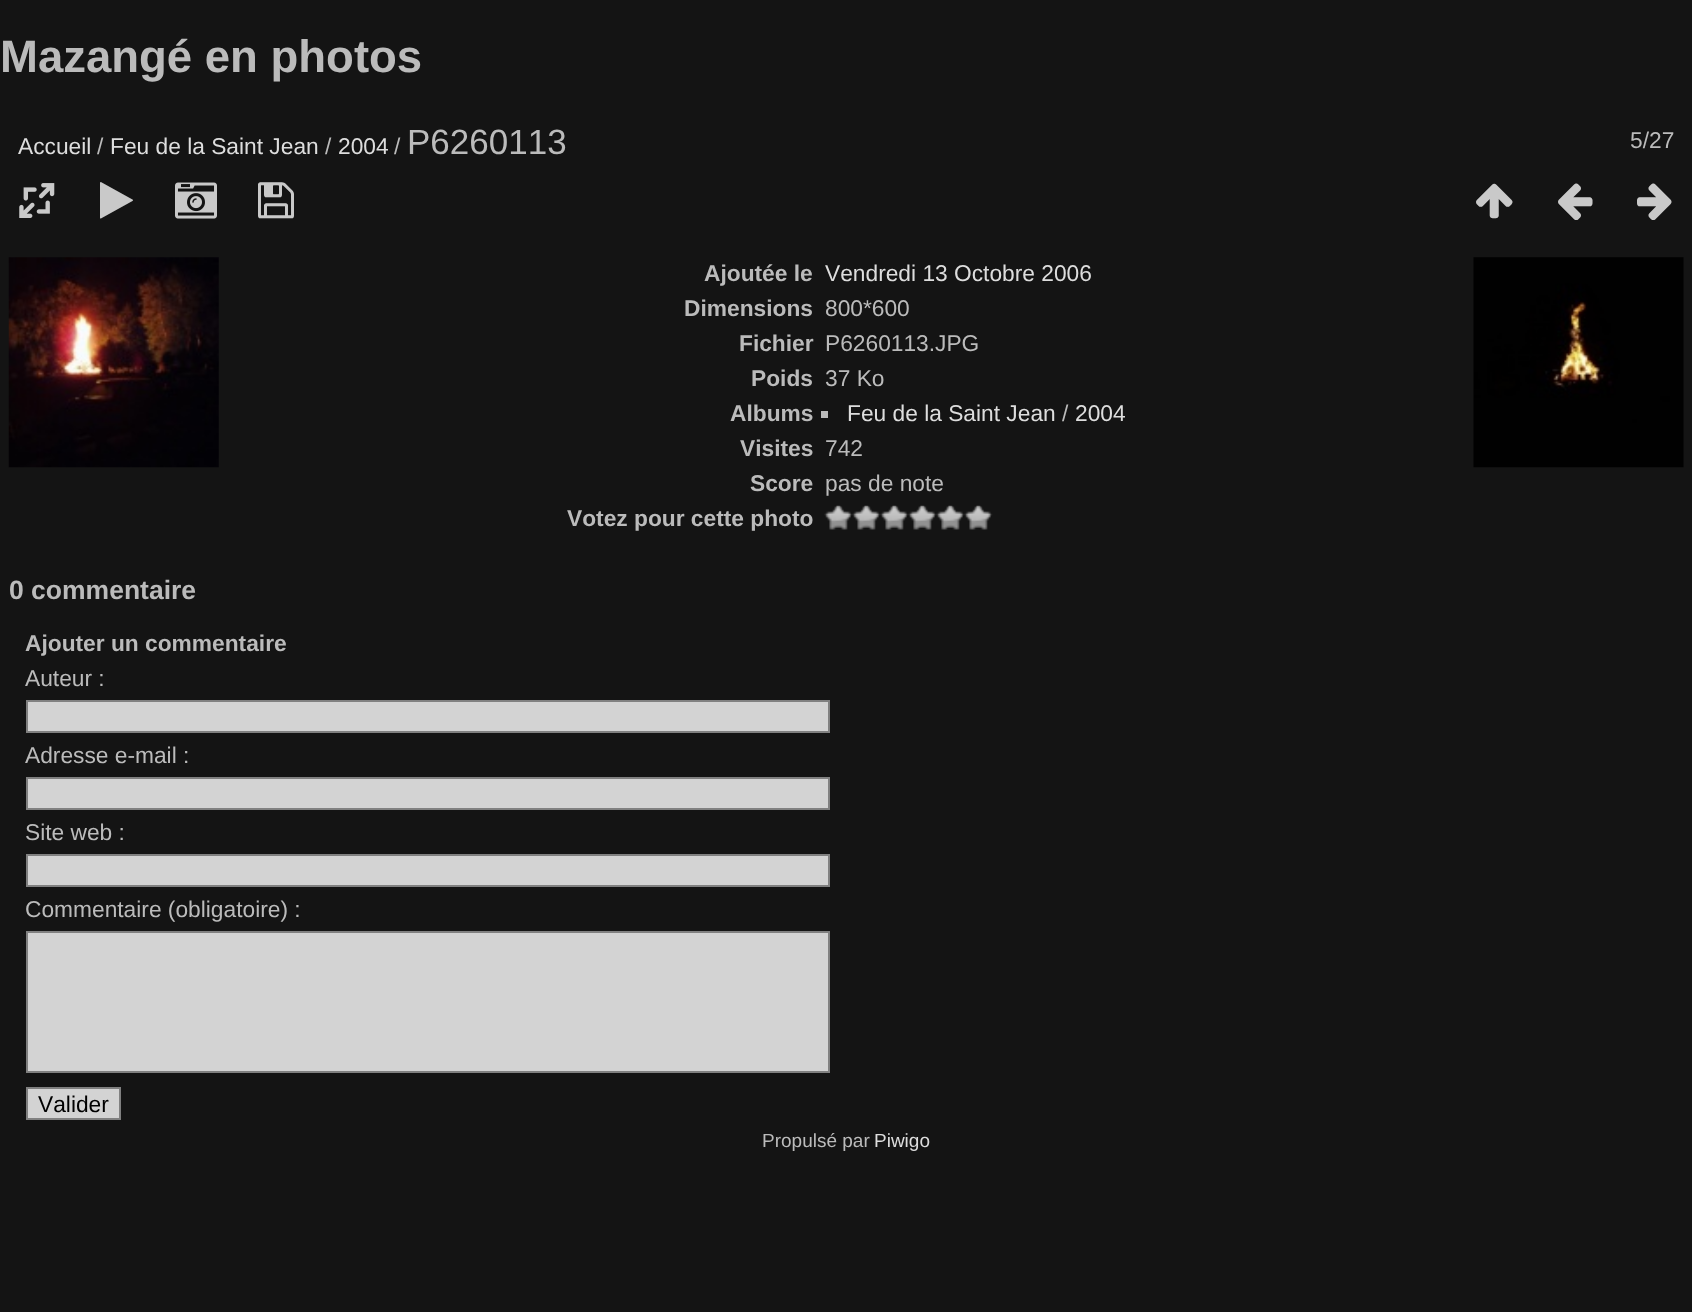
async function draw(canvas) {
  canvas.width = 1692
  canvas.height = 1312
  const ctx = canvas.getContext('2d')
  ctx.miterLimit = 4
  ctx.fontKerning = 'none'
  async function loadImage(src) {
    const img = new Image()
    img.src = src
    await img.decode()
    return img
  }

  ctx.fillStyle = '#141414'
  ctx.fillRect(0, 0, 1692, 1312)
  ctx.font = 'bold 45.5px Liberation Sans'
  ctx.fillStyle = '#bbb'
  ctx.fillText('Mazangé en photos', 0, 72)
  ctx.font = '22.75px Liberation Sans'
  ctx.fillStyle = '#ddd'
  ctx.fillText('Accueil', 18, 154)
  ctx.fillStyle = '#bbb'
  ctx.fillText('/', 97, 154)
  ctx.fillStyle = '#ddd'
  ctx.fillText('Feu de la Saint Jean', 110, 154)
  ctx.fillStyle = '#bbb'
  ctx.fillText('/', 325, 154)
  ctx.fillStyle = '#ddd'
  ctx.fillText('2004', 338, 154)
  ctx.fillStyle = '#bbb'
  ctx.fillText('/', 394, 154)
  ctx.font = '35px Liberation Sans'
  ctx.fillText('P6260113', 407, 154)
  ctx.font = '22.75px Liberation Sans'
  ctx.fillText('5/27', 1630, 148)
  ctx.drawImage(await loadImage('image0.png'), 19, 183, 36, 35)
  ctx.font = '42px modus'
  ctx.fillStyle = '#c9c9c9'
  ctx.fillText('▶', 100, 215)
  ctx.drawImage(await loadImage('image1.png'), 175, 182, 42, 37)
  ctx.fillText('💾', 258, 215)
  ctx.fillText('↑', 1476, 215)
  ctx.fillText('←', 1558, 215)
  ctx.fillText('→', 1637, 215)
  ctx.drawImage(await loadImage('image2.png'), 8, 257, 211, 211)
  ctx.drawImage(await loadImage('image3.png'), 1473, 257, 211, 211)
  ctx.font = 'bold 22.75px Liberation Sans'
  ctx.fillStyle = '#bbb'
  ctx.fillText('Ajoutée le', 704, 281)
  ctx.font = '22.75px Liberation Sans'
  ctx.fillStyle = '#ddd'
  ctx.fillText('Vendredi 13 Octobre 2006', 825, 281)
  ctx.font = 'bold 22.75px Liberation Sans'
  ctx.fillStyle = '#bbb'
  ctx.fillText('Dimensions', 684, 316)
  ctx.font = '22.75px Liberation Sans'
  ctx.fillText('800*600', 825, 316)
  ctx.font = 'bold 22.75px Liberation Sans'
  ctx.fillText('Fichier', 739, 351)
  ctx.font = '22.75px Liberation Sans'
  ctx.fillText('P6260113.JPG', 825, 351)
  ctx.font = 'bold 22.75px Liberation Sans'
  ctx.fillText('Poids', 751, 386)
  ctx.font = '22.75px Liberation Sans'
  ctx.fillText('37 Ko', 825, 386)
  ctx.font = 'bold 22.75px Liberation Sans'
  ctx.fillText('Albums', 730, 421)
  ctx.fillRect(821, 411, 7, 7)
  ctx.font = '22.75px Liberation Sans'
  ctx.fillStyle = '#ddd'
  ctx.fillText('Feu de la Saint Jean', 847, 421)
  ctx.fillStyle = '#bbb'
  ctx.fillText('/', 1062, 421)
  ctx.fillStyle = '#ddd'
  ctx.fillText('2004', 1075, 421)
  ctx.font = 'bold 22.75px Liberation Sans'
  ctx.fillStyle = '#bbb'
  ctx.fillText('Visites', 740, 456)
  ctx.font = '22.75px Liberation Sans'
  ctx.fillText('742', 825, 456)
  ctx.font = 'bold 22.75px Liberation Sans'
  ctx.fillText('Score', 750, 491)
  ctx.font = '22.75px Liberation Sans'
  ctx.fillText('pas de note', 825, 491)
  ctx.font = 'bold 22.75px Liberation Sans'
  ctx.fillText('Votez pour cette photo', 567, 526)
  ctx.drawImage(await loadImage('image4.png'), 824, 505, 29, 25)
  ctx.drawImage(await loadImage('image5.png'), 852, 505, 29, 25)
  ctx.drawImage(await loadImage('image5.png'), 880, 505, 29, 25)
  ctx.drawImage(await loadImage('image5.png'), 908, 505, 29, 25)
  ctx.drawImage(await loadImage('image5.png'), 936, 505, 29, 25)
  ctx.drawImage(await loadImage('image5.png'), 964, 505, 29, 25)
  ctx.font = 'bold 26.5px Liberation Sans'
  ctx.fillText('0 commentaire', 9, 599)
  ctx.font = 'bold 22.75px Liberation Sans'
  ctx.fillText('Ajouter un commentaire', 25, 651)
  ctx.font = '22.75px Liberation Sans'
  ctx.fillText('Auteur :', 25, 686)
  ctx.fillStyle = '#d3d3d3'
  ctx.beginPath()
  ctx.rect(27, 701, 802, 31)
  ctx.fill()
  ctx.strokeStyle = '#808080'
  ctx.lineWidth = 2
  ctx.stroke()
  ctx.fillStyle = '#bbb'
  ctx.fillText('Adresse e-mail :', 25, 763)
  ctx.fillStyle = '#d3d3d3'
  ctx.beginPath()
  ctx.rect(27, 778, 802, 31)
  ctx.fill()
  ctx.stroke()
  ctx.fillStyle = '#bbb'
  ctx.fillText('Site web :', 25, 840)
  ctx.fillStyle = '#d3d3d3'
  ctx.beginPath()
  ctx.rect(27, 855, 802, 31)
  ctx.fill()
  ctx.stroke()
  ctx.fillStyle = '#bbb'
  ctx.fillText('Commentaire (obligatoire) :', 25, 917)
  ctx.fillStyle = '#d3d3d3'
  ctx.beginPath()
  ctx.rect(27, 932, 802, 140)
  ctx.fill()
  ctx.stroke()
  ctx.beginPath()
  ctx.rect(27, 1088, 93, 31)
  ctx.fill()
  ctx.stroke()
  ctx.fillStyle = '#000'
  ctx.fillText('Valider', 38, 1112)
  ctx.font = '19px Liberation Sans'
  ctx.fillStyle = '#bbb'
  ctx.fillText('Propulsé par', 762, 1147)
  ctx.fillStyle = '#ddd'
  ctx.fillText('Piwigo', 874, 1147)
}

draw(document.querySelector('canvas'))
